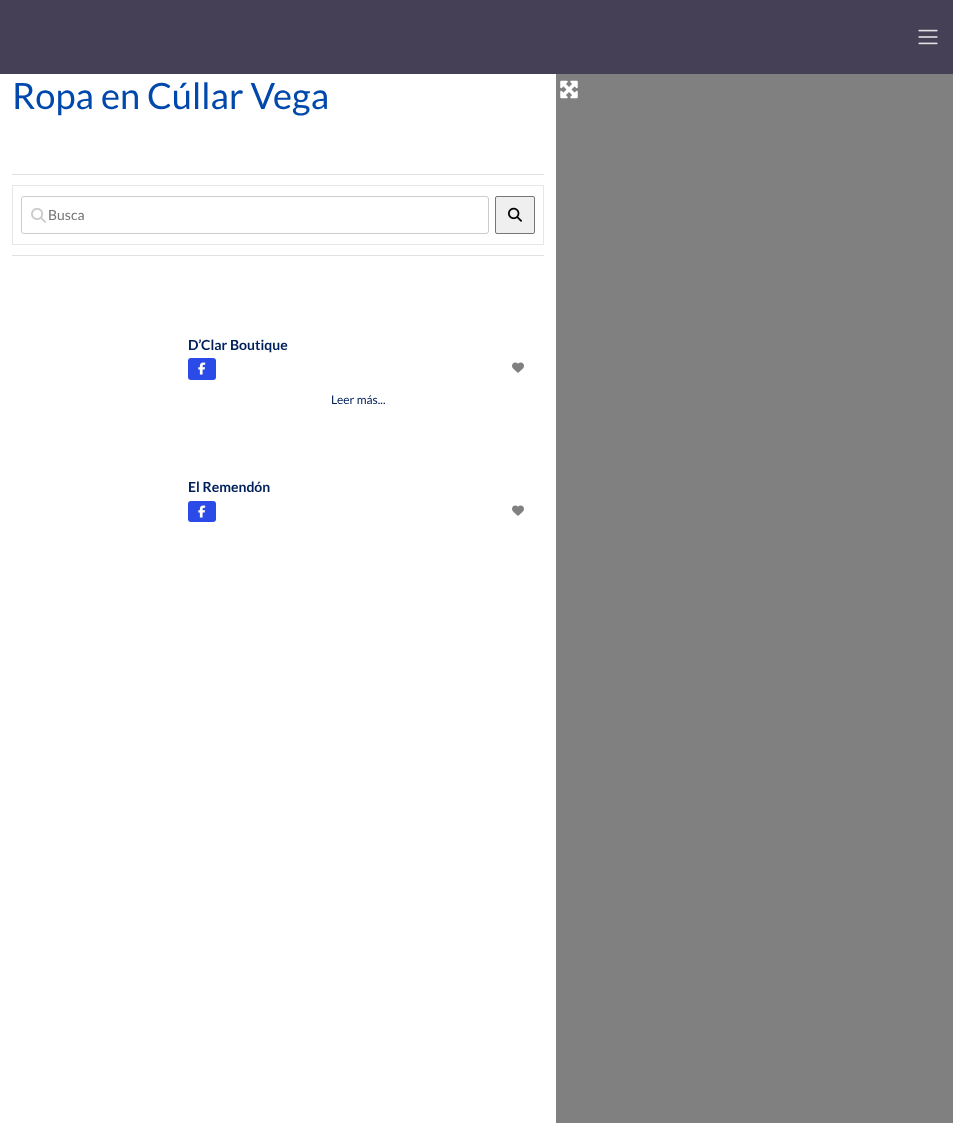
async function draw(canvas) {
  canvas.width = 953
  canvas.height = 1123
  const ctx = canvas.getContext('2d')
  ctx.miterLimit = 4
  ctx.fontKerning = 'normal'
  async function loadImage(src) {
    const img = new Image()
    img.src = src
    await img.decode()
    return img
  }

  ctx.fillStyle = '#fff'
  ctx.fillRect(0, 0, 953, 1123)
  ctx.fillStyle = '#454056'
  ctx.fillRect(0, 0, 953, 74)
  ctx.drawImage(await loadImage('image0.png'), 918, 29, 20, 16)
  ctx.font = '36.25px Lato'
  ctx.fillStyle = '#0048ac'
  ctx.fillText('Ropa en Cúllar Vega', 12, 109)
  ctx.fillStyle = '#e1e1e1'
  ctx.fillRect(12, 174, 532, 1)
  ctx.fillRect(12, 255, 532, 1)
  ctx.strokeStyle = '#e6e6e6'
  ctx.strokeRect(12.5, 185.5, 531, 59)
  ctx.beginPath()
  ctx.roundRect(21.5, 196.5, 467, 37, 2.5)
  ctx.strokeStyle = '#ccc'
  ctx.stroke()
  ctx.drawImage(await loadImage('image1.png'), 31, 207, 15, 16)
  ctx.font = '14px Lato'
  ctx.fillStyle = '#757575'
  ctx.fillText('Busca', 48, 220)
  ctx.fillStyle = '#efefef'
  ctx.beginPath()
  ctx.roundRect(495.5, 196.5, 39, 37, 1.5)
  ctx.fill()
  ctx.strokeStyle = '#767676'
  ctx.stroke()
  ctx.drawImage(await loadImage('image2.png'), 508, 207, 14, 15)
  ctx.font = 'bold 14px Lato'
  ctx.fillStyle = '#00205b'
  ctx.fillText('D’Clar Boutique', 188, 350)
  ctx.fillStyle = '#2b4be8'
  ctx.beginPath()
  ctx.roundRect(188, 358, 28, 22, 3)
  ctx.fill()
  ctx.drawImage(await loadImage('image3.png'), 198, 362, 8, 13)
  ctx.drawImage(await loadImage('image4.png'), 512, 362, 12, 11)
  ctx.font = '12px Lato'
  ctx.fillStyle = '#00205b'
  ctx.fillText('Leer más...', 331, 404)
  ctx.font = 'bold 14px Lato'
  ctx.fillText('El Remendón', 188, 492)
  ctx.fillStyle = '#2b4be8'
  ctx.beginPath()
  ctx.roundRect(188, 501, 28, 21, 3)
  ctx.fill()
  ctx.drawImage(await loadImage('image3.png'), 198, 505, 8, 13)
  ctx.drawImage(await loadImage('image4.png'), 512, 505, 12, 11)
  ctx.fillStyle = '#808080'
  ctx.fillRect(556, 74, 397, 1049)
  ctx.drawImage(await loadImage('image5.png'), 560, 80, 18, 19)
}

draw(document.querySelector('canvas'))
